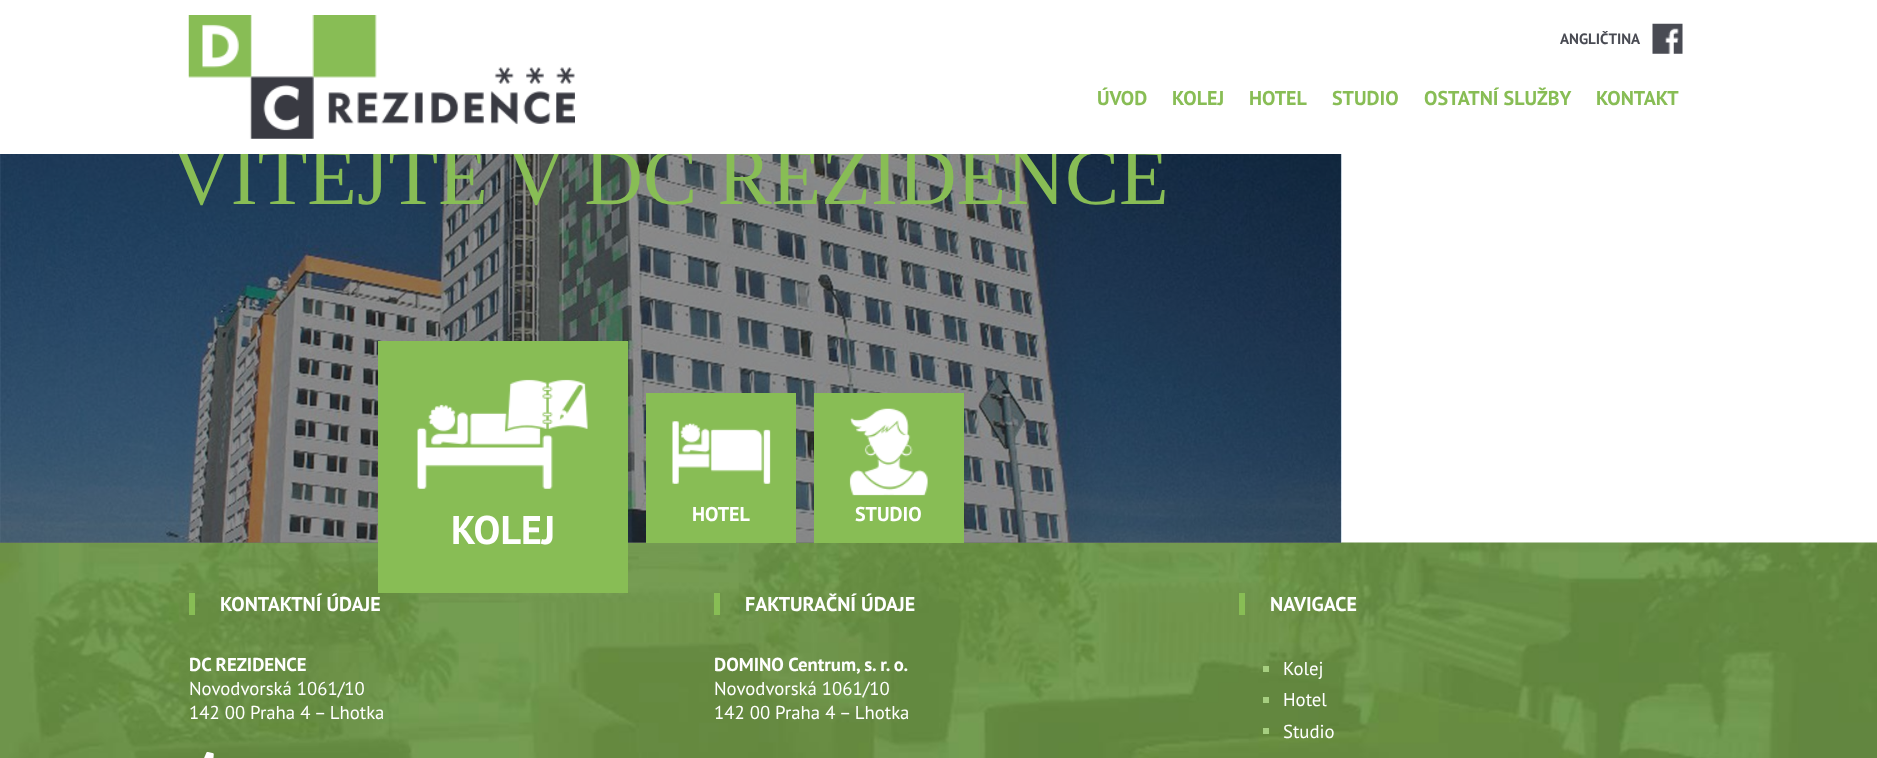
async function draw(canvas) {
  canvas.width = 1877
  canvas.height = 758
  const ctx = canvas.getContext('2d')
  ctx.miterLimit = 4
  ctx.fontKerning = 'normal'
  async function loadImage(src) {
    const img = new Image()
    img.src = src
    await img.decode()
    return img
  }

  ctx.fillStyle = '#fff'
  ctx.fillRect(0, 0, 1877, 758)
  ctx.drawImage(await loadImage('image6.png'), 0, 542, 1877, 216)
  ctx.drawImage(await loadImage('image2.png'), 0, 154, 1342, 389)
  ctx.fillStyle = '#20202380'
  ctx.fillRect(0, 154, 1341, 389)
  ctx.font = '81.25px Liberation Serif'
  ctx.fillStyle = '#88bd55'
  ctx.fillText('VÍTEJTE V DC REZIDENCE', 172, 204)
  ctx.fillStyle = '#fff'
  ctx.fillRect(173, 134, 989, 20)
  ctx.drawImage(await loadImage('image0.png'), 188, 15, 387, 124)
  ctx.font = 'bold 15px PT Sans'
  ctx.fillStyle = '#494b53'
  ctx.fillText('ANGLIČTINA', 1560, 44)
  ctx.drawImage(await loadImage('image1.png'), 1652, 23, 31, 31)
  ctx.font = 'bold 20px PT Sans'
  ctx.fillStyle = '#88bd55'
  ctx.fillText('ÚVOD', 1097, 105)
  ctx.fillText('KOLEJ', 1172, 105)
  ctx.fillText('HOTEL', 1249, 105)
  ctx.fillText('STUDIO', 1332, 105)
  ctx.fillText('OSTATNÍ SLUŽBY', 1424, 105)
  ctx.fillText('KONTAKT', 1596, 105)
  ctx.fillRect(378, 341, 250, 252)
  ctx.drawImage(await loadImage('image3.png'), 417, 379, 171, 110)
  ctx.font = 'bold 40px PT Sans'
  ctx.fillStyle = '#fff'
  ctx.fillText('KOLEJ', 451, 544)
  ctx.fillStyle = '#88bd55'
  ctx.fillRect(646, 393, 150, 150)
  ctx.drawImage(await loadImage('image4.png'), 672, 421, 99, 63)
  ctx.font = 'bold 20px PT Sans'
  ctx.fillStyle = '#fff'
  ctx.fillText('HOTEL', 692, 521)
  ctx.fillStyle = '#88bd55'
  ctx.fillRect(814, 393, 150, 150)
  ctx.drawImage(await loadImage('image5.png'), 849, 408, 79, 88)
  ctx.fillStyle = '#fff'
  ctx.fillText('STUDIO', 855, 521)
  ctx.fillStyle = '#88bd55'
  ctx.fillRect(189, 593, 6, 22)
  ctx.fillStyle = '#fff'
  ctx.fillText('KONTAKTNÍ ÚDAJE', 220, 611)
  ctx.font = 'bold 18.75px PT Sans'
  ctx.fillText('DC REZIDENCE', 189, 671)
  ctx.font = '18.75px PT Sans'
  ctx.fillText('Novodvorská 1061/10', 189, 695)
  ctx.fillText('142 00 Praha 4 – Lhotka', 189, 719)
  ctx.drawImage(await loadImage('image7.png'), 204, 751, 10, 7)
  ctx.fillStyle = '#88bd55'
  ctx.fillRect(714, 593, 6, 22)
  ctx.font = 'bold 20px PT Sans'
  ctx.fillStyle = '#fff'
  ctx.fillText('FAKTURAČNÍ ÚDAJE', 745, 611)
  ctx.font = 'bold 18.75px PT Sans'
  ctx.fillText('DOMINO Centrum, s. r. o.', 714, 671)
  ctx.font = '18.75px PT Sans'
  ctx.fillText('Novodvorská 1061/10', 714, 695)
  ctx.fillText('142 00 Praha 4 – Lhotka', 714, 719)
  ctx.fillStyle = '#88bd55'
  ctx.fillRect(1239, 593, 6, 22)
  ctx.font = 'bold 20px PT Sans'
  ctx.fillStyle = '#fff'
  ctx.fillText('NAVIGACE', 1270, 611)
  ctx.fillStyle = '#a6ce80'
  ctx.fillRect(1263, 666, 6, 6)
  ctx.font = '18.75px PT Sans'
  ctx.fillStyle = '#fff'
  ctx.fillText('Kolej', 1283, 675)
  ctx.fillStyle = '#a6ce80'
  ctx.fillRect(1263, 697, 6, 6)
  ctx.fillStyle = '#fff'
  ctx.fillText('Hotel', 1283, 706)
  ctx.fillStyle = '#a6ce80'
  ctx.fillRect(1263, 728, 6, 6)
  ctx.fillStyle = '#fff'
  ctx.fillText('Studio', 1283, 738)
}

draw(document.querySelector('canvas'))
